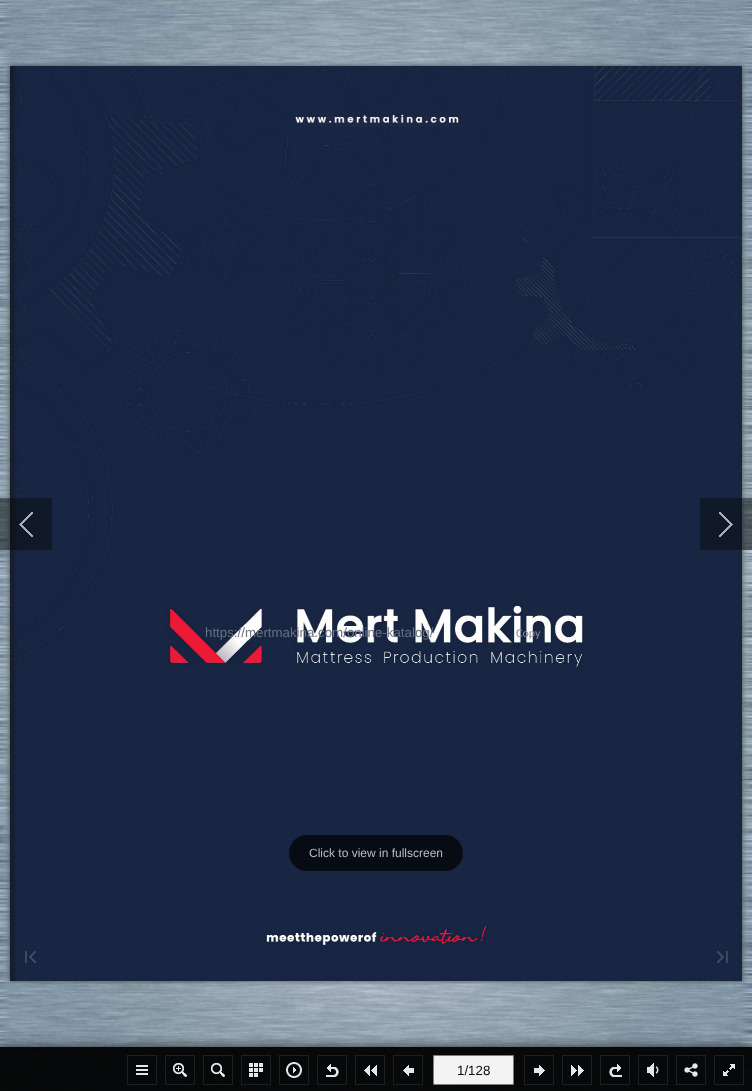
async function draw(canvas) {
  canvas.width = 752
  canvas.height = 1091
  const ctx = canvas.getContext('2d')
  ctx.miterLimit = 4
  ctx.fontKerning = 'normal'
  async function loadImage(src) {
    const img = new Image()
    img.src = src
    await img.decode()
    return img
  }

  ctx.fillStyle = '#fff'
  ctx.fillRect(0, 0, 752, 1091)
  ctx.drawImage(await loadImage('image0.png'), 0, 0, 752, 1091)
  ctx.fillStyle = '#282828b3'
  ctx.filter = 'blur(2.5px)'
  ctx.beginPath()
  ctx.rect(10, 66, 732, 915)
  ctx.fill()
  ctx.filter = 'none'
  ctx.drawImage(await loadImage('image3.png'), 10, 66, 732, 915)
  ctx.drawImage(await loadImage('image1.png'), 0, 498, 52, 52)
  ctx.drawImage(await loadImage('image2.png'), 700, 498, 52, 52)
  ctx.font = '13.3px Liberation Sans'
  ctx.fillStyle = '#687183'
  ctx.fillText('https://mertmakina.com/online-katalog/', 205, 637)
  ctx.font = '12px Carlito'
  ctx.fillStyle = '#858c9b'
  ctx.fillText('Copy', 516, 637)
  ctx.fillStyle = '#8080800a'
  ctx.fillRect(304, 116, 145, 11)
  ctx.fillStyle = '#070b14'
  ctx.beginPath()
  ctx.roundRect(289, 835, 174, 36, 18)
  ctx.fill()
  ctx.font = '12px Liberation Sans'
  ctx.fillStyle = '#babec7'
  ctx.fillText('Click to view in fullscreen', 309, 857)
  ctx.drawImage(await loadImage('image4.png'), 25, 951, 11, 12)
  ctx.drawImage(await loadImage('image5.png'), 717, 951, 11, 12)
  ctx.save()
  ctx.beginPath()
  ctx.rect(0, 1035, 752, 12)
  ctx.clip()
  ctx.fillStyle = '#282828f2'
  ctx.filter = 'blur(6px)'
  ctx.beginPath()
  ctx.rect(0, 1047, 752, 44)
  ctx.fill()
  ctx.filter = 'none'
  ctx.restore()
  ctx.fillStyle = '#000000f2'
  ctx.fillRect(0, 1047, 752, 44)
  ctx.strokeStyle = '#1e1f20'
  ctx.strokeRect(127.5, 1055.5, 29, 29)
  ctx.drawImage(await loadImage('image6.png'), 136, 1065, 12, 10)
  ctx.strokeRect(165.5, 1055.5, 29, 29)
  ctx.drawImage(await loadImage('image7.png'), 173, 1063, 14, 14)
  ctx.strokeRect(203.5, 1055.5, 29, 29)
  ctx.drawImage(await loadImage('image8.png'), 211, 1063, 14, 14)
  ctx.strokeStyle = '#1f1f20'
  ctx.strokeRect(241.5, 1055.5, 29, 29)
  ctx.drawImage(await loadImage('image9.png'), 249, 1063, 14, 14)
  ctx.strokeRect(279.5, 1055.5, 29, 29)
  ctx.drawImage(await loadImage('image10.png'), 286, 1062, 16, 16)
  ctx.strokeRect(317.5, 1055.5, 29, 29)
  ctx.drawImage(await loadImage('image11.png'), 326, 1064, 13, 13)
  ctx.strokeStyle = '#1f2020'
  ctx.strokeRect(355.5, 1055.5, 29, 29)
  ctx.drawImage(await loadImage('image12.png'), 364, 1065, 13, 11)
  ctx.strokeStyle = '#1f1f20'
  ctx.strokeRect(393.5, 1055.5, 29, 29)
  ctx.drawImage(await loadImage('image13.png'), 403, 1065, 11, 11)
  ctx.fillStyle = '#f3f3f3'
  ctx.beginPath()
  ctx.roundRect(433, 1055, 81, 30, 2)
  ctx.fill()
  ctx.beginPath()
  ctx.roundRect(433.5, 1055.5, 80, 29, 1.5)
  ctx.strokeStyle = '#767676f2'
  ctx.stroke()
  ctx.font = '13.3px Liberation Sans'
  ctx.fillStyle = '#0c0c0c'
  ctx.fillText('1/128', 457, 1075)
  ctx.strokeStyle = '#1e1f20'
  ctx.strokeRect(524.5, 1055.5, 29, 29)
  ctx.drawImage(await loadImage('image14.png'), 534, 1065, 11, 11)
  ctx.strokeRect(562.5, 1055.5, 29, 29)
  ctx.drawImage(await loadImage('image15.png'), 571, 1065, 13, 11)
  ctx.strokeRect(600.5, 1055.5, 29, 29)
  ctx.drawImage(await loadImage('image16.png'), 609, 1064, 13, 13)
  ctx.strokeRect(638.5, 1055.5, 29, 29)
  ctx.drawImage(await loadImage('image17.png'), 647, 1063, 13, 14)
  ctx.strokeRect(676.5, 1055.5, 29, 29)
  ctx.drawImage(await loadImage('image18.png'), 684, 1063, 14, 14)
  ctx.strokeRect(714.5, 1055.5, 29, 29)
  ctx.drawImage(await loadImage('image19.png'), 723, 1064, 12, 12)
}

draw(document.querySelector('canvas'))
